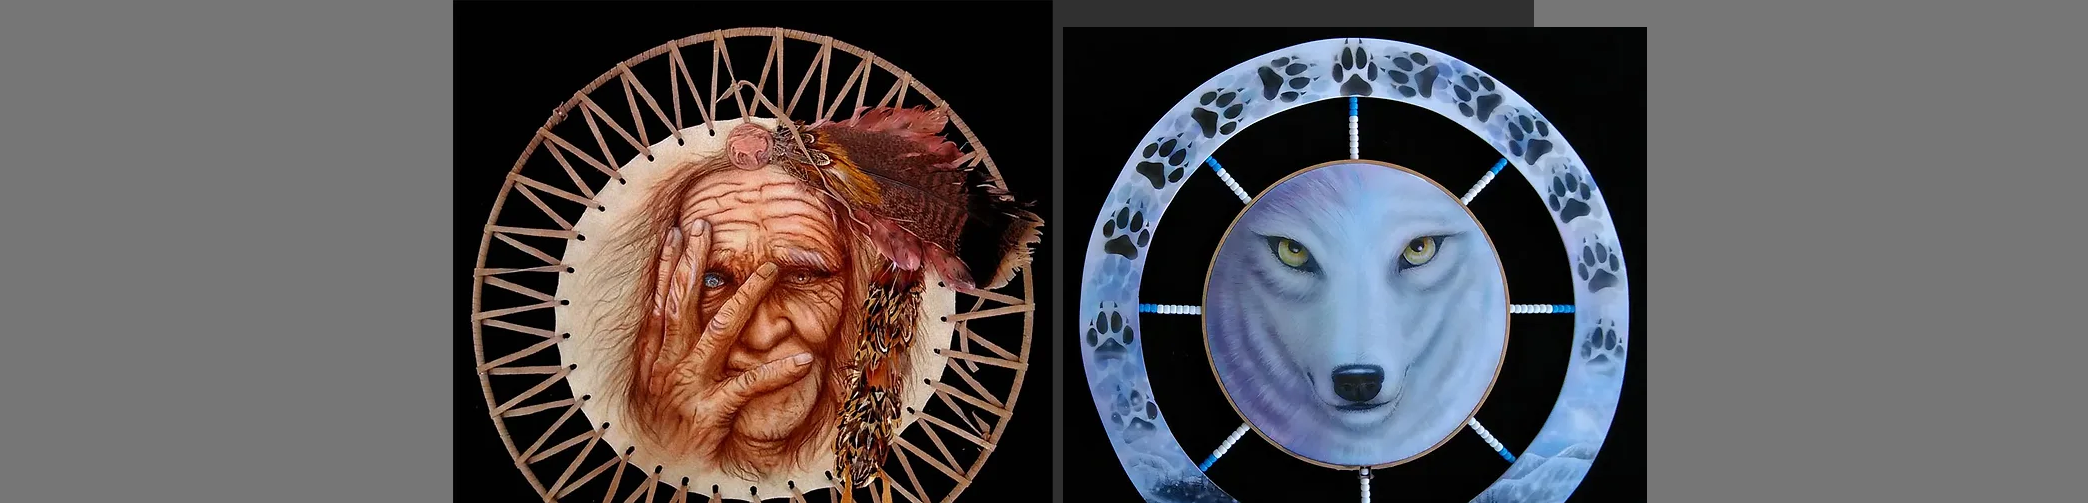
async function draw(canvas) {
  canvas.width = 2088
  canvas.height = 503
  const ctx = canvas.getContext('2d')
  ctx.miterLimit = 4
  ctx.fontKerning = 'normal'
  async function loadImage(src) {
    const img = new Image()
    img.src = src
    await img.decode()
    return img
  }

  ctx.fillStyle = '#767676'
  ctx.fillRect(0, 0, 2088, 503)
  ctx.drawImage(await loadImage('image0.png'), 453, 0, 600, 503)
  ctx.fillStyle = '#303030'
  ctx.fillRect(1053, 0, 481, 503)
  ctx.drawImage(await loadImage('image1.png'), 1063, 27, 584, 476)
}

draw(document.querySelector('canvas'))
